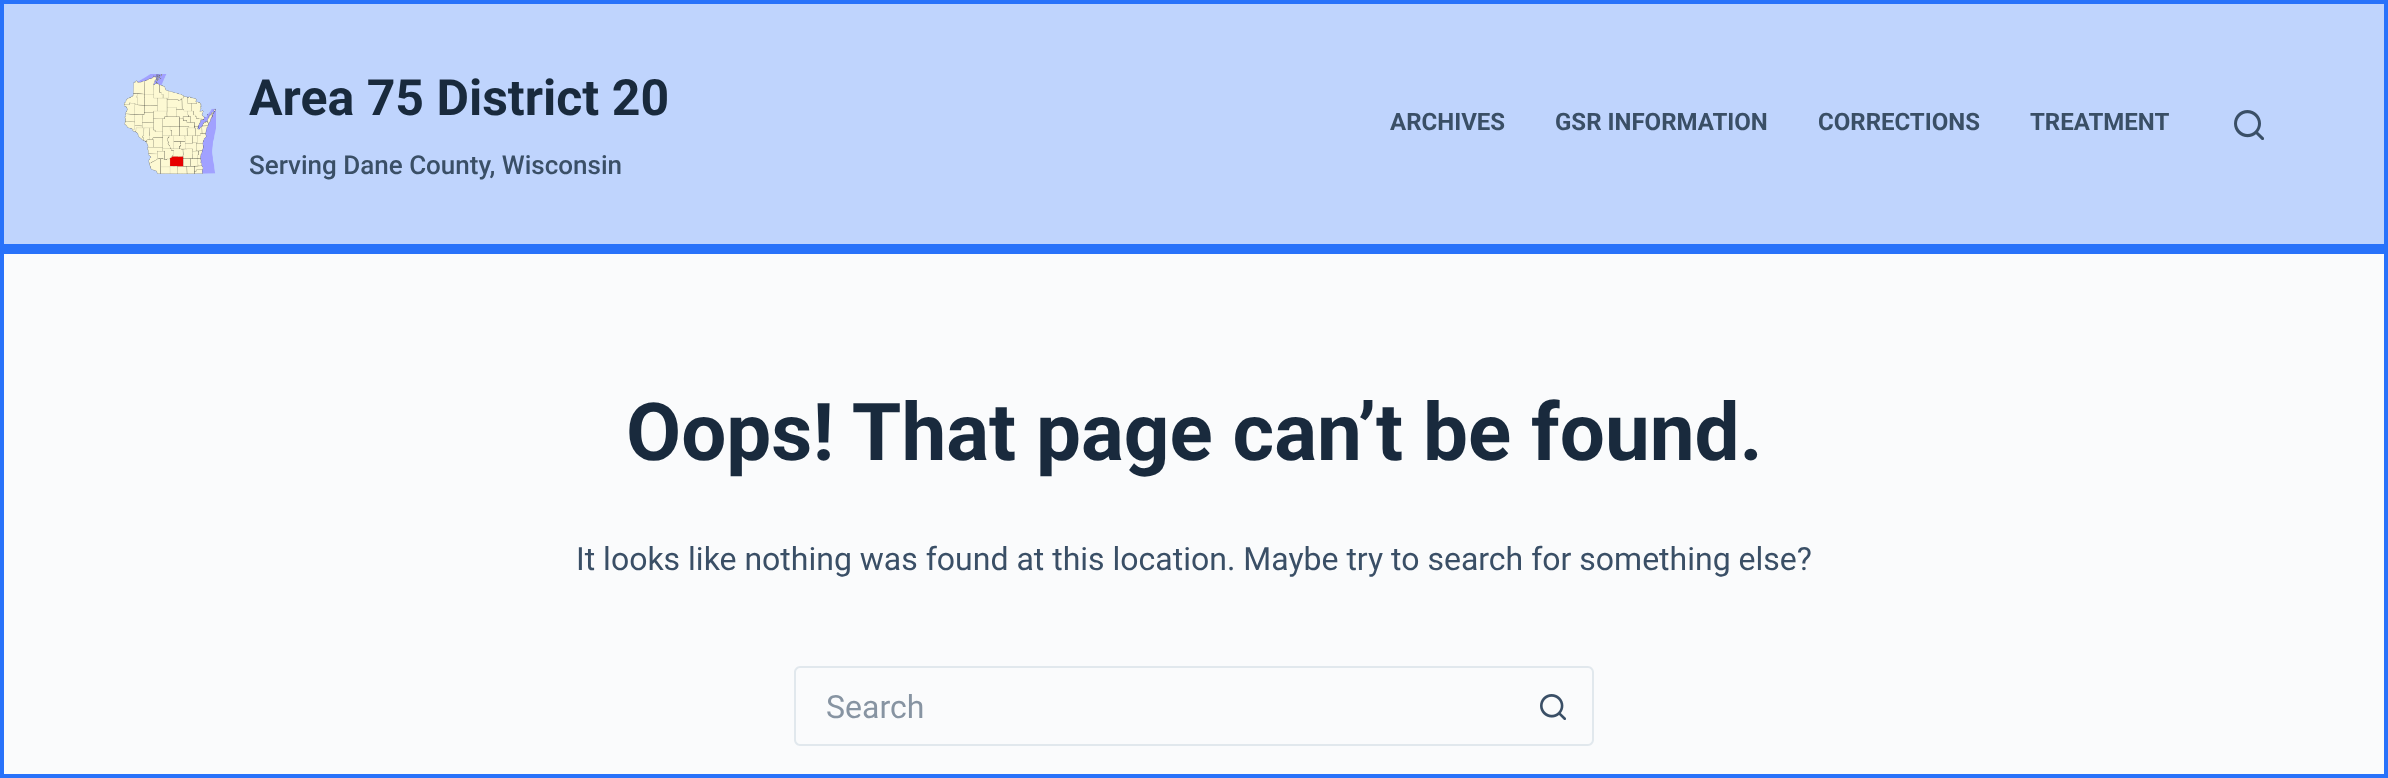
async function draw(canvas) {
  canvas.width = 2388
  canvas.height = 778
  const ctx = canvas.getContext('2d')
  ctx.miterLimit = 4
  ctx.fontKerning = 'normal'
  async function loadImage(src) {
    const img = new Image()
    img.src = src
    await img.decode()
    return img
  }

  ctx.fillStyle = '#fafbfc'
  ctx.fillRect(0, 0, 2388, 778)
  ctx.strokeStyle = '#2872fa'
  ctx.lineWidth = 4
  ctx.strokeRect(2, 2, 2384, 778)
  ctx.fillStyle = '#bfd4fd'
  ctx.fillRect(4, 4, 2380, 240)
  ctx.fillStyle = '#2872fa'
  ctx.fillRect(4, 244, 2380, 10)
  ctx.drawImage(await loadImage('image0.png'), 124, 74, 92, 100)
  ctx.font = 'bold 50px Roboto'
  ctx.fillStyle = '#192a3d'
  ctx.fillText('Area 75 District 20', 249, 115)
  ctx.font = '500 26px Roboto'
  ctx.fillStyle = '#3a4f66'
  ctx.fillText('Serving Dane County, Wisconsin', 249, 174)
  ctx.font = 'bold 24px Roboto'
  ctx.fillText('ARCHIVES', 1390, 130)
  ctx.fillText('GSR INFORMATION', 1555, 130)
  ctx.fillText('CORRECTIONS', 1818, 130)
  ctx.fillText('TREATMENT', 2030, 130)
  ctx.drawImage(await loadImage('image1.png'), 2234, 110, 30, 30)
  ctx.font = 'bold 80px Roboto'
  ctx.fillStyle = '#192a3d'
  ctx.fillText('Oops! That page can’t be found.', 626, 460)
  ctx.font = '32px Roboto'
  ctx.fillStyle = '#3a4f66'
  ctx.fillText('It looks like nothing was found at this location. Maybe try to search for something else?', 576, 570)
  ctx.fillStyle = '#e1e8ed'
  ctx.beginPath()
  ctx.moveTo(800, 666)
  ctx.lineTo(1514, 666)
  ctx.lineTo(1514, 746)
  ctx.lineTo(800, 746)
  ctx.bezierCurveTo(797, 746, 794, 743, 794, 740)
  ctx.lineTo(794, 672)
  ctx.bezierCurveTo(794, 669, 797, 666, 800, 666)
  ctx.closePath()
  ctx.moveTo(800, 668)
  ctx.lineTo(1514, 668)
  ctx.lineTo(1514, 744)
  ctx.lineTo(800, 744)
  ctx.bezierCurveTo(798, 744, 796, 742, 796, 740)
  ctx.lineTo(796, 672)
  ctx.bezierCurveTo(796, 670, 798, 668, 800, 668)
  ctx.closePath()
  ctx.fill('evenodd')
  ctx.fillStyle = '#8794a2'
  ctx.fillText('Search', 826, 718)
  ctx.fillStyle = '#e1e8ed'
  ctx.beginPath()
  ctx.moveTo(1514, 666)
  ctx.lineTo(1588, 666)
  ctx.bezierCurveTo(1591, 666, 1594, 669, 1594, 672)
  ctx.lineTo(1594, 740)
  ctx.bezierCurveTo(1594, 743, 1591, 746, 1588, 746)
  ctx.lineTo(1514, 746)
  ctx.closePath()
  ctx.moveTo(1514, 668)
  ctx.lineTo(1588, 668)
  ctx.bezierCurveTo(1590, 668, 1592, 670, 1592, 672)
  ctx.lineTo(1592, 740)
  ctx.bezierCurveTo(1592, 742, 1590, 744, 1588, 744)
  ctx.lineTo(1514, 744)
  ctx.closePath()
  ctx.fill('evenodd')
  ctx.drawImage(await loadImage('image2.png'), 1540, 694, 26, 26)
  ctx.fillStyle = '#2872fa'
  ctx.fillRect(0, 774, 2388, 4)
}

draw(document.querySelector('canvas'))
